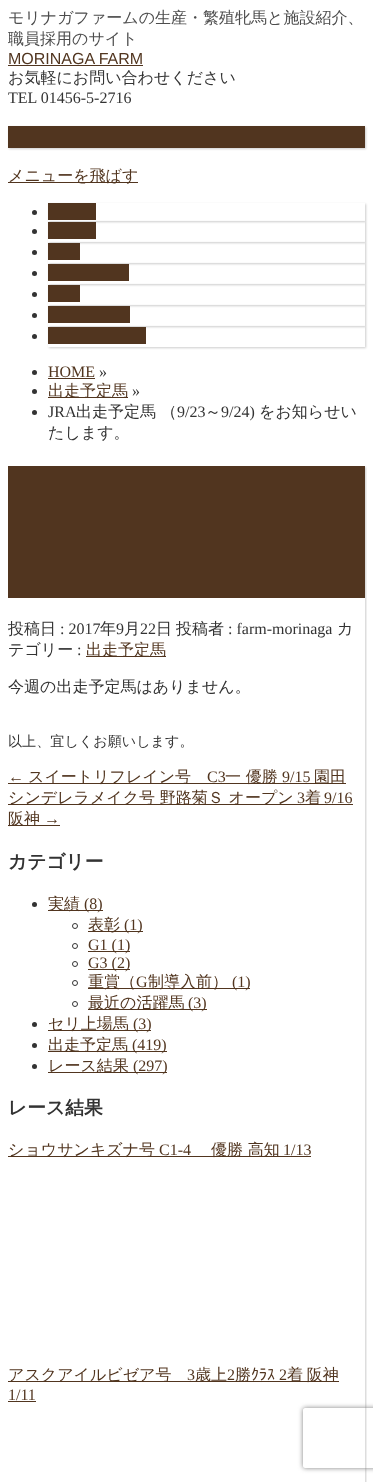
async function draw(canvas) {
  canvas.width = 373
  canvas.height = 1482
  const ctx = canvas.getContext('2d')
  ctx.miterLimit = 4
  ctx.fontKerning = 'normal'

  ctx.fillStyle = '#fff'
  ctx.fillRect(0, 0, 373, 1482)
  ctx.font = '500 16px WenQuanYi Zen Hei'
  ctx.fillStyle = '#4d4d4d'
  ctx.fillText('モリナガファームの生産・繁殖牝馬と施設紹介、', 8, 23)
  ctx.fillText('職員採用のサイト', 8, 44)
  ctx.font = '16px Liberation Sans'
  ctx.fillStyle = '#51351f'
  ctx.fillText('MORINAGA FARM', 8, 64)
  ctx.fillRect(8, 65, 135, 1)
  ctx.font = '500 16px WenQuanYi Zen Hei'
  ctx.fillStyle = '#333'
  ctx.fillText('お気軽にお問い合わせください', 8, 83)
  ctx.font = '16px Liberation Serif'
  ctx.fillText('TEL 01456-5-2716', 8, 103)
  ctx.fillStyle = '#00000033'
  ctx.filter = 'blur(1px)'
  ctx.beginPath()
  ctx.rect(9, 127, 357, 22)
  ctx.fill()
  ctx.filter = 'none'
  ctx.fillStyle = '#51351f'
  ctx.fillRect(8, 126, 357, 22)
  ctx.fillRect(8, 182, 130, 1)
  ctx.font = '500 16px WenQuanYi Zen Hei'
  ctx.fillText('メニューを飛ばす', 8, 181)
  ctx.save()
  ctx.beginPath()
  ctx.moveTo(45, 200)
  ctx.lineTo(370, 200)
  ctx.lineTo(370, 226)
  ctx.lineTo(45, 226)
  ctx.closePath()
  ctx.moveTo(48, 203)
  ctx.lineTo(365, 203)
  ctx.lineTo(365, 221)
  ctx.lineTo(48, 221)
  ctx.closePath()
  ctx.clip('evenodd')
  ctx.fillStyle = '#00000033'
  ctx.filter = 'blur(1px)'
  ctx.beginPath()
  ctx.rect(49, 204, 317, 18)
  ctx.fill()
  ctx.filter = 'none'
  ctx.restore()
  ctx.fillStyle = '#333'
  ctx.beginPath()
  ctx.arc(34.5, 212.5, 2.5, 0, 2 * Math.PI)
  ctx.fill()
  ctx.save()
  ctx.beginPath()
  ctx.moveTo(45, 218)
  ctx.lineTo(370, 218)
  ctx.lineTo(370, 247)
  ctx.lineTo(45, 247)
  ctx.closePath()
  ctx.moveTo(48, 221)
  ctx.lineTo(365, 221)
  ctx.lineTo(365, 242)
  ctx.lineTo(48, 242)
  ctx.closePath()
  ctx.clip('evenodd')
  ctx.fillStyle = '#00000033'
  ctx.filter = 'blur(1px)'
  ctx.beginPath()
  ctx.rect(49, 222, 317, 21)
  ctx.fill()
  ctx.filter = 'none'
  ctx.restore()
  ctx.fillStyle = '#51351f'
  ctx.fillRect(48, 203, 48, 17)
  ctx.fillStyle = '#333'
  ctx.beginPath()
  ctx.arc(34.5, 231.5, 2.5, 0, 2 * Math.PI)
  ctx.fill()
  ctx.fillStyle = '#51351f'
  ctx.fillRect(48, 222, 48, 17)
  ctx.save()
  ctx.beginPath()
  ctx.moveTo(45, 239)
  ctx.lineTo(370, 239)
  ctx.lineTo(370, 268)
  ctx.lineTo(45, 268)
  ctx.closePath()
  ctx.moveTo(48, 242)
  ctx.lineTo(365, 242)
  ctx.lineTo(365, 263)
  ctx.lineTo(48, 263)
  ctx.closePath()
  ctx.clip('evenodd')
  ctx.fillStyle = '#00000033'
  ctx.filter = 'blur(1px)'
  ctx.beginPath()
  ctx.rect(49, 243, 317, 21)
  ctx.fill()
  ctx.filter = 'none'
  ctx.restore()
  ctx.fillStyle = '#333'
  ctx.beginPath()
  ctx.arc(34.5, 252.5, 2.5, 0, 2 * Math.PI)
  ctx.fill()
  ctx.fillStyle = '#51351f'
  ctx.fillRect(48, 243, 32, 17)
  ctx.save()
  ctx.beginPath()
  ctx.moveTo(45, 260)
  ctx.lineTo(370, 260)
  ctx.lineTo(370, 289)
  ctx.lineTo(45, 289)
  ctx.closePath()
  ctx.moveTo(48, 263)
  ctx.lineTo(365, 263)
  ctx.lineTo(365, 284)
  ctx.lineTo(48, 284)
  ctx.closePath()
  ctx.clip('evenodd')
  ctx.fillStyle = '#00000033'
  ctx.filter = 'blur(1px)'
  ctx.beginPath()
  ctx.rect(49, 264, 317, 21)
  ctx.fill()
  ctx.filter = 'none'
  ctx.restore()
  ctx.fillStyle = '#333'
  ctx.beginPath()
  ctx.arc(34.5, 273.5, 2.5, 0, 2 * Math.PI)
  ctx.fill()
  ctx.fillStyle = '#51351f'
  ctx.fillRect(48, 264, 81, 17)
  ctx.save()
  ctx.beginPath()
  ctx.moveTo(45, 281)
  ctx.lineTo(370, 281)
  ctx.lineTo(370, 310)
  ctx.lineTo(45, 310)
  ctx.closePath()
  ctx.moveTo(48, 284)
  ctx.lineTo(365, 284)
  ctx.lineTo(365, 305)
  ctx.lineTo(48, 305)
  ctx.closePath()
  ctx.clip('evenodd')
  ctx.fillStyle = '#00000033'
  ctx.filter = 'blur(1px)'
  ctx.beginPath()
  ctx.rect(49, 285, 317, 21)
  ctx.fill()
  ctx.filter = 'none'
  ctx.restore()
  ctx.fillStyle = '#333'
  ctx.beginPath()
  ctx.arc(34.5, 294.5, 2.5, 0, 2 * Math.PI)
  ctx.fill()
  ctx.fillStyle = '#51351f'
  ctx.fillRect(48, 285, 32, 17)
  ctx.save()
  ctx.beginPath()
  ctx.moveTo(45, 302)
  ctx.lineTo(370, 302)
  ctx.lineTo(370, 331)
  ctx.lineTo(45, 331)
  ctx.closePath()
  ctx.moveTo(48, 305)
  ctx.lineTo(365, 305)
  ctx.lineTo(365, 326)
  ctx.lineTo(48, 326)
  ctx.closePath()
  ctx.clip('evenodd')
  ctx.fillStyle = '#00000033'
  ctx.filter = 'blur(1px)'
  ctx.beginPath()
  ctx.rect(49, 306, 317, 21)
  ctx.fill()
  ctx.filter = 'none'
  ctx.restore()
  ctx.fillStyle = '#333'
  ctx.beginPath()
  ctx.arc(34.5, 315.5, 2.5, 0, 2 * Math.PI)
  ctx.fill()
  ctx.fillStyle = '#51351f'
  ctx.fillRect(48, 306, 82, 17)
  ctx.save()
  ctx.beginPath()
  ctx.moveTo(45, 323)
  ctx.lineTo(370, 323)
  ctx.lineTo(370, 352)
  ctx.lineTo(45, 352)
  ctx.closePath()
  ctx.moveTo(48, 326)
  ctx.lineTo(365, 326)
  ctx.lineTo(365, 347)
  ctx.lineTo(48, 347)
  ctx.closePath()
  ctx.clip('evenodd')
  ctx.fillStyle = '#00000033'
  ctx.filter = 'blur(1px)'
  ctx.beginPath()
  ctx.rect(49, 327, 317, 21)
  ctx.fill()
  ctx.filter = 'none'
  ctx.restore()
  ctx.fillStyle = '#333'
  ctx.beginPath()
  ctx.arc(34.5, 336.5, 2.5, 0, 2 * Math.PI)
  ctx.fill()
  ctx.fillStyle = '#51351f'
  ctx.fillRect(48, 327, 98, 17)
  ctx.fillStyle = '#333'
  ctx.beginPath()
  ctx.arc(34.5, 372.5, 2.5, 0, 2 * Math.PI)
  ctx.fill()
  ctx.font = '16px Liberation Serif'
  ctx.fillStyle = '#51351f'
  ctx.fillText('HOME', 48, 377)
  ctx.fillRect(48, 378, 47, 1)
  ctx.fillStyle = '#333'
  ctx.fillText('»', 99, 377)
  ctx.beginPath()
  ctx.arc(34.5, 391.5, 2.5, 0, 2 * Math.PI)
  ctx.fill()
  ctx.fillStyle = '#51351f'
  ctx.fillRect(48, 397, 80, 1)
  ctx.font = '500 16px WenQuanYi Zen Hei'
  ctx.fillText('出走予定馬', 48, 396)
  ctx.font = '16px Liberation Serif'
  ctx.fillStyle = '#333'
  ctx.fillText('»', 132, 396)
  ctx.beginPath()
  ctx.arc(34.5, 412.5, 2.5, 0, 2 * Math.PI)
  ctx.fill()
  ctx.fillText('JRA', 48, 417)
  ctx.font = '500 16px WenQuanYi Zen Hei'
  ctx.fillText('出走予定馬 （', 76, 417)
  ctx.font = '16px Liberation Serif'
  ctx.fillText('9/23', 177, 417)
  ctx.font = '500 16px WenQuanYi Zen Hei'
  ctx.fillText('～', 205, 417)
  ctx.font = '16px Liberation Serif'
  ctx.fillText('9/24)', 221, 417)
  ctx.font = '500 16px WenQuanYi Zen Hei'
  ctx.fillText('をお知らせい', 259, 417)
  ctx.fillText('たします。', 48, 438)
  ctx.save()
  ctx.beginPath()
  ctx.rect(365, 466, 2, 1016)
  ctx.clip()
  ctx.fillStyle = '#00000033'
  ctx.filter = 'blur(1px)'
  ctx.beginPath()
  ctx.rect(9, 467, 357, 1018)
  ctx.fill()
  ctx.filter = 'none'
  ctx.restore()
  ctx.fillStyle = '#51351f'
  ctx.fillRect(8, 466, 357, 132)
  ctx.fillStyle = '#333'
  ctx.fillText('投稿日', 8, 634)
  ctx.font = '16px Liberation Serif'
  ctx.fillText(': 2017', 60, 634)
  ctx.font = '500 16px WenQuanYi Zen Hei'
  ctx.fillText('年', 100, 634)
  ctx.font = '16px Liberation Serif'
  ctx.fillText('9', 116, 634)
  ctx.font = '500 16px WenQuanYi Zen Hei'
  ctx.fillText('月', 124, 634)
  ctx.font = '16px Liberation Serif'
  ctx.fillText('22', 140, 634)
  ctx.font = '500 16px WenQuanYi Zen Hei'
  ctx.fillText('日', 156, 634)
  ctx.fillText('投稿者', 176, 634)
  ctx.font = '16px Liberation Serif'
  ctx.fillText(': farm-morinaga', 228, 634)
  ctx.font = '500 16px WenQuanYi Zen Hei'
  ctx.fillText('カ', 337, 634)
  ctx.fillText('テゴリー', 8, 655)
  ctx.font = '16px Liberation Serif'
  ctx.fillText(':', 77, 655)
  ctx.fillStyle = '#51351f'
  ctx.fillRect(86, 656, 80, 1)
  ctx.font = '500 16px WenQuanYi Zen Hei'
  ctx.fillText('出走予定馬', 86, 655)
  ctx.fillStyle = '#333'
  ctx.fillText('今週の出走予定馬はありません。', 8, 692)
  ctx.font = '500 14.1px WenQuanYi Zen Hei'
  ctx.fillText('以上、宜しくお願いします。', 8, 746)
  ctx.font = '16px Liberation Serif'
  ctx.fillStyle = '#51351f'
  ctx.fillText('←', 8, 782)
  ctx.fillRect(8, 783, 338, 1)
  ctx.font = '500 16px WenQuanYi Zen Hei'
  ctx.fillText('スイートリフレイン号', 28, 782)
  ctx.font = '16px Liberation Serif'
  ctx.fillText('C3', 207, 782)
  ctx.font = '500 16px WenQuanYi Zen Hei'
  ctx.fillText('一 優勝', 225, 782)
  ctx.font = '16px Liberation Serif'
  ctx.fillText('9/15', 282, 782)
  ctx.font = '500 16px WenQuanYi Zen Hei'
  ctx.fillText('園田', 314, 782)
  ctx.fillRect(8, 804, 345, 1)
  ctx.fillText('シンデレラメイク号 野路菊Ｓ オープン', 8, 803)
  ctx.font = '16px Liberation Serif'
  ctx.fillText('3', 297, 803)
  ctx.font = '500 16px WenQuanYi Zen Hei'
  ctx.fillText('着', 305, 803)
  ctx.font = '16px Liberation Serif'
  ctx.fillText('9/16', 324, 803)
  ctx.fillRect(8, 825, 52, 1)
  ctx.font = '500 16px WenQuanYi Zen Hei'
  ctx.fillText('阪神', 8, 824)
  ctx.font = '16px Liberation Serif'
  ctx.fillText('→', 44, 824)
  ctx.font = 'bold 18.75px WenQuanYi Zen Hei'
  ctx.fillStyle = '#333'
  ctx.fillText('カテゴリー', 8, 868)
  ctx.beginPath()
  ctx.arc(34.5, 904.5, 2.5, 0, 2 * Math.PI)
  ctx.fill()
  ctx.fillStyle = '#51351f'
  ctx.fillRect(48, 910, 55, 1)
  ctx.font = '500 16px WenQuanYi Zen Hei'
  ctx.fillText('実績', 48, 909)
  ctx.font = '16px Liberation Serif'
  ctx.fillText('(8)', 84, 909)
  ctx.beginPath()
  ctx.arc(75, 926, 2.5, 0, 2 * Math.PI)
  ctx.strokeStyle = '#333'
  ctx.stroke()
  ctx.fillRect(88, 931, 55, 1)
  ctx.font = '500 16px WenQuanYi Zen Hei'
  ctx.fillText('表彰', 88, 930)
  ctx.font = '16px Liberation Serif'
  ctx.fillText('(1)', 124, 930)
  ctx.beginPath()
  ctx.arc(75, 946, 2.5, 0, 2 * Math.PI)
  ctx.stroke()
  ctx.fillRect(88, 951, 42, 1)
  ctx.fillText('G1 (1)', 88, 950)
  ctx.beginPath()
  ctx.arc(75, 964, 2.5, 0, 2 * Math.PI)
  ctx.stroke()
  ctx.fillRect(88, 969, 42, 1)
  ctx.fillText('G3 (2)', 88, 968)
  ctx.beginPath()
  ctx.arc(75, 983, 2.5, 0, 2 * Math.PI)
  ctx.stroke()
  ctx.fillRect(88, 988, 162, 1)
  ctx.font = '500 16px WenQuanYi Zen Hei'
  ctx.fillText('重賞（', 88, 987)
  ctx.font = '16px Liberation Serif'
  ctx.fillText('G', 136, 987)
  ctx.font = '500 16px WenQuanYi Zen Hei'
  ctx.fillText('制導入前）', 148, 987)
  ctx.font = '16px Liberation Serif'
  ctx.fillText('(1)', 232, 987)
  ctx.beginPath()
  ctx.arc(75, 1004, 2.5, 0, 2 * Math.PI)
  ctx.stroke()
  ctx.fillRect(88, 1009, 119, 1)
  ctx.font = '500 16px WenQuanYi Zen Hei'
  ctx.fillText('最近の活躍馬', 88, 1008)
  ctx.font = '16px Liberation Serif'
  ctx.fillText('(3)', 188, 1008)
  ctx.fillStyle = '#333'
  ctx.beginPath()
  ctx.arc(34.5, 1024.5, 2.5, 0, 2 * Math.PI)
  ctx.fill()
  ctx.fillStyle = '#51351f'
  ctx.fillRect(48, 1030, 103, 1)
  ctx.font = '500 16px WenQuanYi Zen Hei'
  ctx.fillText('セリ上場馬', 48, 1029)
  ctx.font = '16px Liberation Serif'
  ctx.fillText('(3)', 133, 1029)
  ctx.fillStyle = '#333'
  ctx.beginPath()
  ctx.arc(34.5, 1045.5, 2.5, 0, 2 * Math.PI)
  ctx.fill()
  ctx.fillStyle = '#51351f'
  ctx.fillRect(48, 1051, 119, 1)
  ctx.font = '500 16px WenQuanYi Zen Hei'
  ctx.fillText('出走予定馬', 48, 1050)
  ctx.font = '16px Liberation Serif'
  ctx.fillText('(419)', 132, 1050)
  ctx.fillStyle = '#333'
  ctx.beginPath()
  ctx.arc(34.5, 1066.5, 2.5, 0, 2 * Math.PI)
  ctx.fill()
  ctx.fillStyle = '#51351f'
  ctx.fillRect(48, 1072, 119, 1)
  ctx.font = '500 16px WenQuanYi Zen Hei'
  ctx.fillText('レース結果', 48, 1071)
  ctx.font = '16px Liberation Serif'
  ctx.fillText('(297)', 133, 1071)
  ctx.font = 'bold 18.75px WenQuanYi Zen Hei'
  ctx.fillStyle = '#333'
  ctx.fillText('レース結果', 8, 1114)
  ctx.fillStyle = '#51351f'
  ctx.fillRect(8, 1156, 303, 1)
  ctx.font = '500 16px WenQuanYi Zen Hei'
  ctx.fillText('ショウサンキズナ号', 8, 1155)
  ctx.font = '16px Liberation Serif'
  ctx.fillText('C1-4', 159, 1155)
  ctx.font = '500 16px WenQuanYi Zen Hei'
  ctx.fillText('優勝 高知', 211, 1155)
  ctx.font = '16px Liberation Serif'
  ctx.fillText('1/13', 283, 1155)
  ctx.fillRect(8, 1381, 331, 1)
  ctx.font = '500 16px WenQuanYi Zen Hei'
  ctx.fillText('アスクアイルビゼア号', 8, 1380)
  ctx.font = '16px Liberation Serif'
  ctx.fillText('3', 187, 1380)
  ctx.font = '500 16px WenQuanYi Zen Hei'
  ctx.fillText('歳上', 195, 1380)
  ctx.font = '16px Liberation Serif'
  ctx.fillText('2', 227, 1380)
  ctx.font = '500 16px WenQuanYi Zen Hei'
  ctx.fillText('勝', 235, 1380)
  ctx.font = '16px IPAPGothic'
  ctx.fillText('ｸﾗｽ', 251, 1380)
  ctx.font = '16px Liberation Serif'
  ctx.fillText('2', 279, 1380)
  ctx.wordSpacing = '-1px'
  ctx.font = '500 16px WenQuanYi Zen Hei'
  ctx.fillText('着 阪神', 287, 1380)
  ctx.wordSpacing = '0px'
  ctx.font = '16px Liberation Serif'
  ctx.fillText('1/11', 8, 1400)
  ctx.fillRect(8, 1401, 28, 1)
  ctx.save()
  ctx.beginPath()
  ctx.moveTo(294, 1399)
  ctx.lineTo(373, 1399)
  ctx.lineTo(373, 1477)
  ctx.lineTo(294, 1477)
  ctx.closePath()
  ctx.moveTo(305, 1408)
  ctx.lineTo(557, 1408)
  ctx.bezierCurveTo(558, 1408, 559, 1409, 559, 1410)
  ctx.lineTo(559, 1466)
  ctx.bezierCurveTo(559, 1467, 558, 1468, 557, 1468)
  ctx.lineTo(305, 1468)
  ctx.bezierCurveTo(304, 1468, 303, 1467, 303, 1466)
  ctx.lineTo(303, 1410)
  ctx.bezierCurveTo(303, 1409, 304, 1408, 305, 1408)
  ctx.closePath()
  ctx.clip('evenodd')
  ctx.fillStyle = '#808080'
  ctx.filter = 'blur(2.5px)'
  ctx.beginPath()
  ctx.roundRect(303, 1408, 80, 60, 2)
  ctx.fill()
  ctx.filter = 'none'
  ctx.restore()
}

draw(document.querySelector('canvas'))
